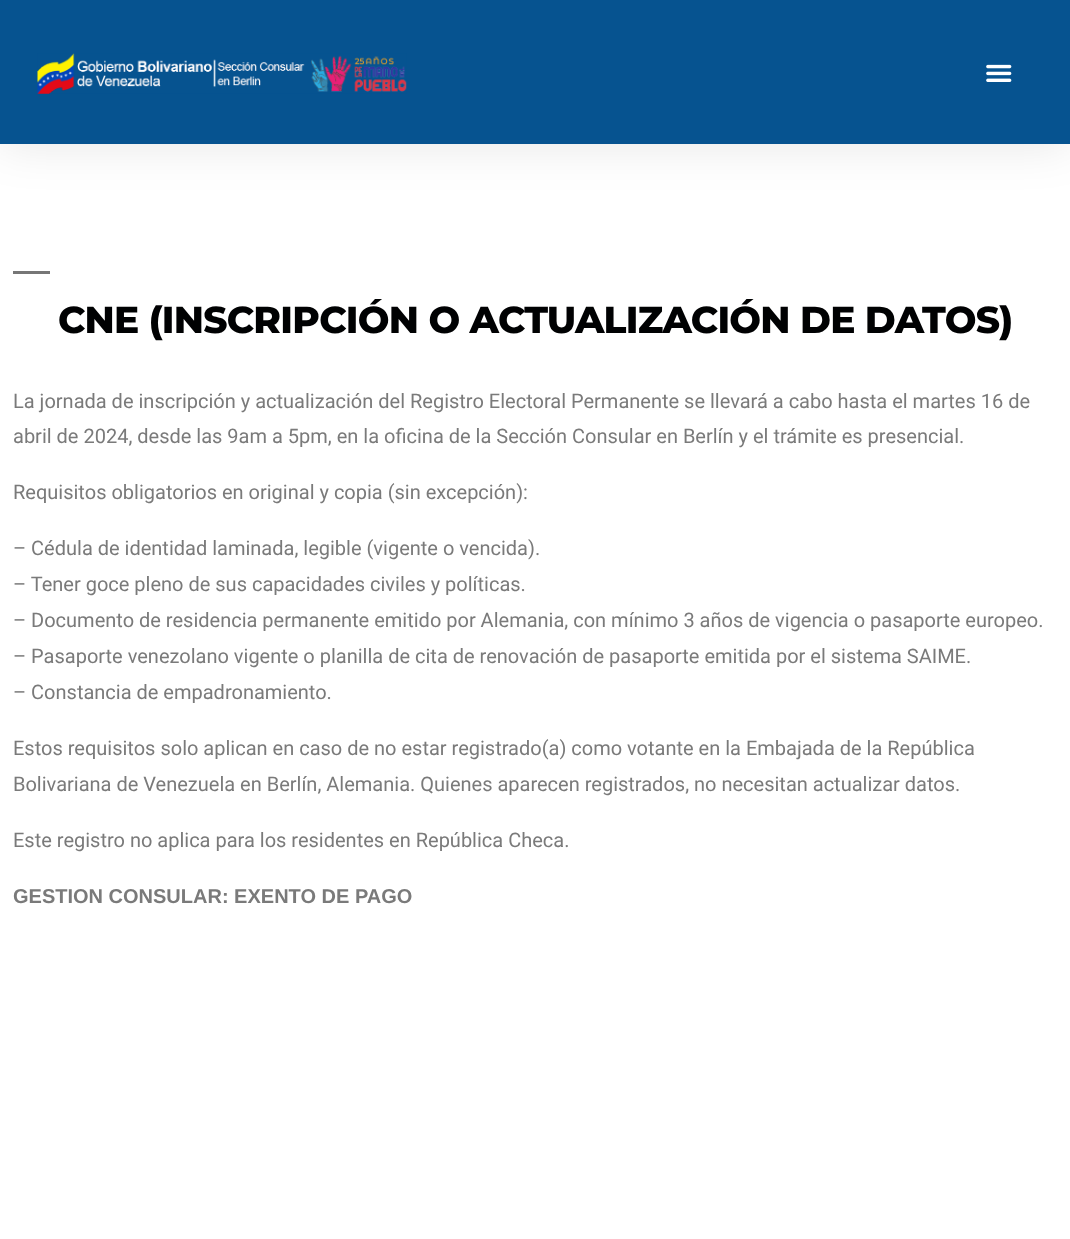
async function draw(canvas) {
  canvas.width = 1070
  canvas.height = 1239
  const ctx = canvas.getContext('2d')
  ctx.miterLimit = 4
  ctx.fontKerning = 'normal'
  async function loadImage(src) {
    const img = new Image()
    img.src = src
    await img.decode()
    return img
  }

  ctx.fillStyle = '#fff'
  ctx.fillRect(0, 0, 1070, 1239)
  ctx.fillStyle = '#0000001a'
  ctx.filter = 'blur(24px)'
  ctx.beginPath()
  ctx.rect(0, 0, 1070, 144)
  ctx.fill()
  ctx.filter = 'none'
  ctx.fillStyle = '#065390'
  ctx.fillRect(0, 0, 1070, 144)
  ctx.drawImage(await loadImage('image0.png'), 37, 53, 370, 41)
  ctx.drawImage(await loadImage('image1.png'), 986, 64, 26, 18)
  ctx.fillStyle = '#767676'
  ctx.fillRect(13, 271, 37, 3)
  ctx.letterSpacing = '-0.75px'
  ctx.font = '800 37.5px Montserrat'
  ctx.fillStyle = '#000102'
  ctx.fillText('CNE (INSCRIPCIÓN O ACTUALIZACIÓN DE DATOS)', 58, 333)
  ctx.letterSpacing = '0px'
  ctx.font = '20px Roboto'
  ctx.fillStyle = '#7a7a7a'
  ctx.fillText('La jornada de inscripción y actualización del Registro Electoral Permanente se llevará a cabo hasta el martes 16 de', 13, 408)
  ctx.fillText('abril de 2024, desde las 9am a 5pm, en la oficina de la Sección Consular en Berlín y el trámite es presencial.', 13, 443)
  ctx.fillText('Requisitos obligatorios en original y copia (sin excepción):', 13, 499)
  ctx.fillText('– Cédula de identidad laminada, legible (vigente o vencida).', 13, 555)
  ctx.fillText('– Tener goce pleno de sus capacidades civiles y políticas.', 13, 591)
  ctx.fillText('– Documento de residencia permanente emitido por Alemania, con mínimo 3 años de vigencia o pasaporte europeo.', 13, 627)
  ctx.fillText('– Pasaporte venezolano vigente o planilla de cita de renovación de pasaporte emitida por el sistema SAIME.', 13, 663)
  ctx.fillText('– Constancia de empadronamiento.', 13, 699)
  ctx.fillText('Estos requisitos solo aplican en caso de no estar registrado(a) como votante en la Embajada de la República', 13, 755)
  ctx.fillText('Bolivariana de Venezuela en Berlín, Alemania. Quienes aparecen registrados, no necesitan actualizar datos.', 13, 791)
  ctx.fillText('Este registro no aplica para los residentes en República Checa.', 13, 847)
  ctx.font = 'bold 20px Liberation Sans'
  ctx.fillText('GESTION CONSULAR: EXENTO DE PAGO', 13, 903)
}

draw(document.querySelector('canvas'))
